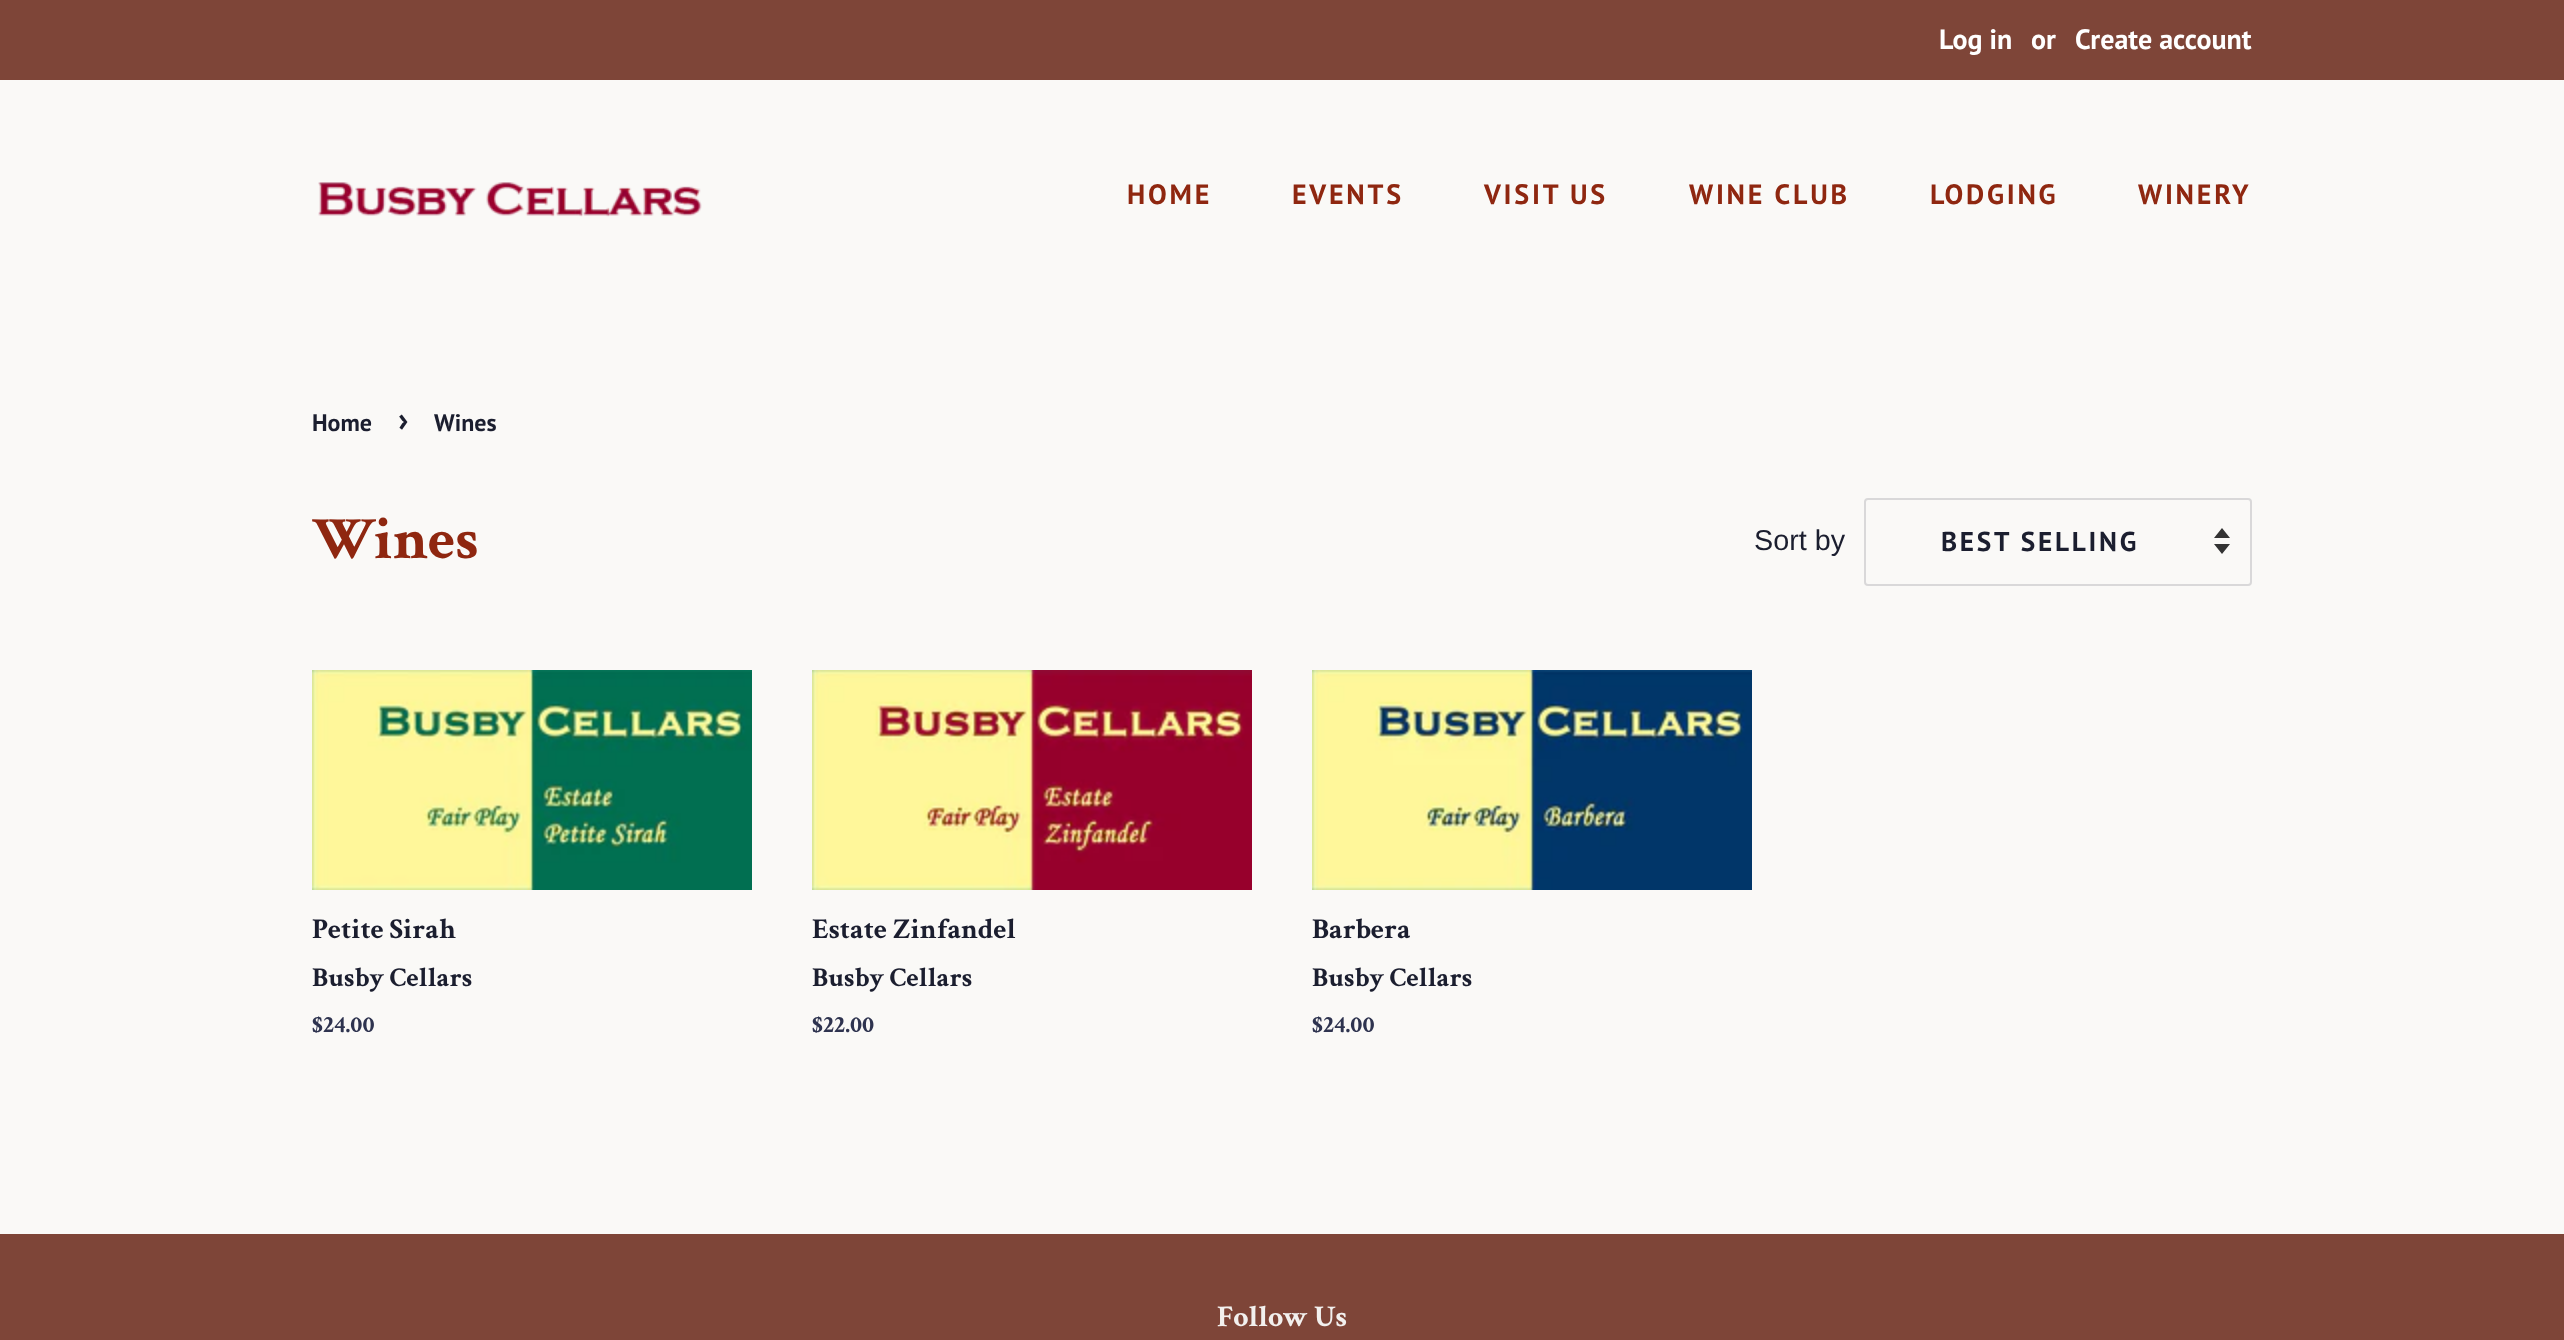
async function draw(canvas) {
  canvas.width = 2564
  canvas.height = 1340
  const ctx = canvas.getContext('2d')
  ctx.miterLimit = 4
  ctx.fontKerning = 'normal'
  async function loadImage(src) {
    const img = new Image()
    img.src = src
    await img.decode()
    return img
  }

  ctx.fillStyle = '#faf9f7'
  ctx.fillRect(0, 0, 2564, 1340)
  ctx.fillStyle = '#7e4538'
  ctx.fillRect(0, 0, 2564, 80)
  ctx.font = 'bold 28px PT Sans'
  ctx.fillStyle = '#fff'
  ctx.fillText('Log in', 1939, 49)
  ctx.fillText('or', 2031, 49)
  ctx.fillText('Create account', 2075, 49)
  ctx.drawImage(await loadImage('image0.png'), 318, 182, 384, 35)
  ctx.letterSpacing = '2.75px'
  ctx.fillStyle = '#8f2710'
  ctx.fillText('HOME', 1127, 204)
  ctx.fillText('EVENTS', 1292, 204)
  ctx.fillText('VISIT US', 1484, 204)
  ctx.fillText('WINE CLUB', 1689, 204)
  ctx.fillText('LODGING', 1930, 204)
  ctx.fillText('WINERY', 2138, 204)
  ctx.letterSpacing = '0px'
  ctx.font = 'bold 24px PT Sans'
  ctx.fillStyle = '#1b1e2f'
  ctx.fillText('Home', 312, 431)
  ctx.font = 'bold 34px PT Sans'
  ctx.fillText('›', 398, 431)
  ctx.font = 'bold 24px PT Sans'
  ctx.fillText('Wines', 434, 431)
  ctx.font = 'bold 60px Crimson Text'
  ctx.fillStyle = '#8f2710'
  ctx.fillText('Wines', 312, 558)
  ctx.font = '28.75px Liberation Sans'
  ctx.fillStyle = '#1b1e2f'
  ctx.fillText('Sort by', 1754, 550)
  ctx.fillStyle = '#333'
  ctx.beginPath()
  ctx.moveTo(2214, 544)
  ctx.lineTo(2222, 554)
  ctx.lineTo(2230, 544)
  ctx.closePath()
  ctx.moveTo(2222, 528)
  ctx.lineTo(2214, 538)
  ctx.lineTo(2230, 538)
  ctx.closePath()
  ctx.fill()
  ctx.beginPath()
  ctx.roundRect(1865, 499, 386, 86, 3)
  ctx.strokeStyle = '#d9d8d9'
  ctx.lineWidth = 2
  ctx.stroke()
  ctx.letterSpacing = '2.75px'
  ctx.font = 'bold 27.25px PT Sans'
  ctx.fillStyle = '#1b1e2f'
  ctx.fillText('BEST SELLING', 1941, 551)
  ctx.drawImage(await loadImage('image1.png'), 312, 670, 440, 220)
  ctx.letterSpacing = '0px'
  ctx.font = 'bold 28.75px Crimson Text'
  ctx.fillText('Petite Sirah', 312, 938)
  ctx.font = 'bold 27.25px Crimson Text'
  ctx.fillText('Busby Cellars', 312, 986)
  ctx.font = 'bold 24px Crimson Text'
  ctx.fillStyle = '#2e334f'
  ctx.fillText('$24.00', 312, 1032)
  ctx.drawImage(await loadImage('image2.png'), 812, 670, 440, 220)
  ctx.font = 'bold 28.75px Crimson Text'
  ctx.fillStyle = '#1b1e2f'
  ctx.fillText('Estate Zinfandel', 812, 938)
  ctx.font = 'bold 27.25px Crimson Text'
  ctx.fillText('Busby Cellars', 812, 986)
  ctx.font = 'bold 24px Crimson Text'
  ctx.fillStyle = '#2e334f'
  ctx.fillText('$22.00', 812, 1032)
  ctx.drawImage(await loadImage('image3.png'), 1312, 670, 440, 220)
  ctx.font = 'bold 28.75px Crimson Text'
  ctx.fillStyle = '#1b1e2f'
  ctx.fillText('Barbera', 1312, 938)
  ctx.font = 'bold 27.25px Crimson Text'
  ctx.fillText('Busby Cellars', 1312, 986)
  ctx.font = 'bold 24px Crimson Text'
  ctx.fillStyle = '#2e334f'
  ctx.fillText('$24.00', 1312, 1032)
  ctx.fillStyle = '#7e4538'
  ctx.fillRect(0, 1234, 2564, 106)
  ctx.font = 'bold 30px Crimson Text'
  ctx.fillStyle = '#f2f0ee'
  ctx.fillText('Follow Us', 1217, 1326)
}

draw(document.querySelector('canvas'))
